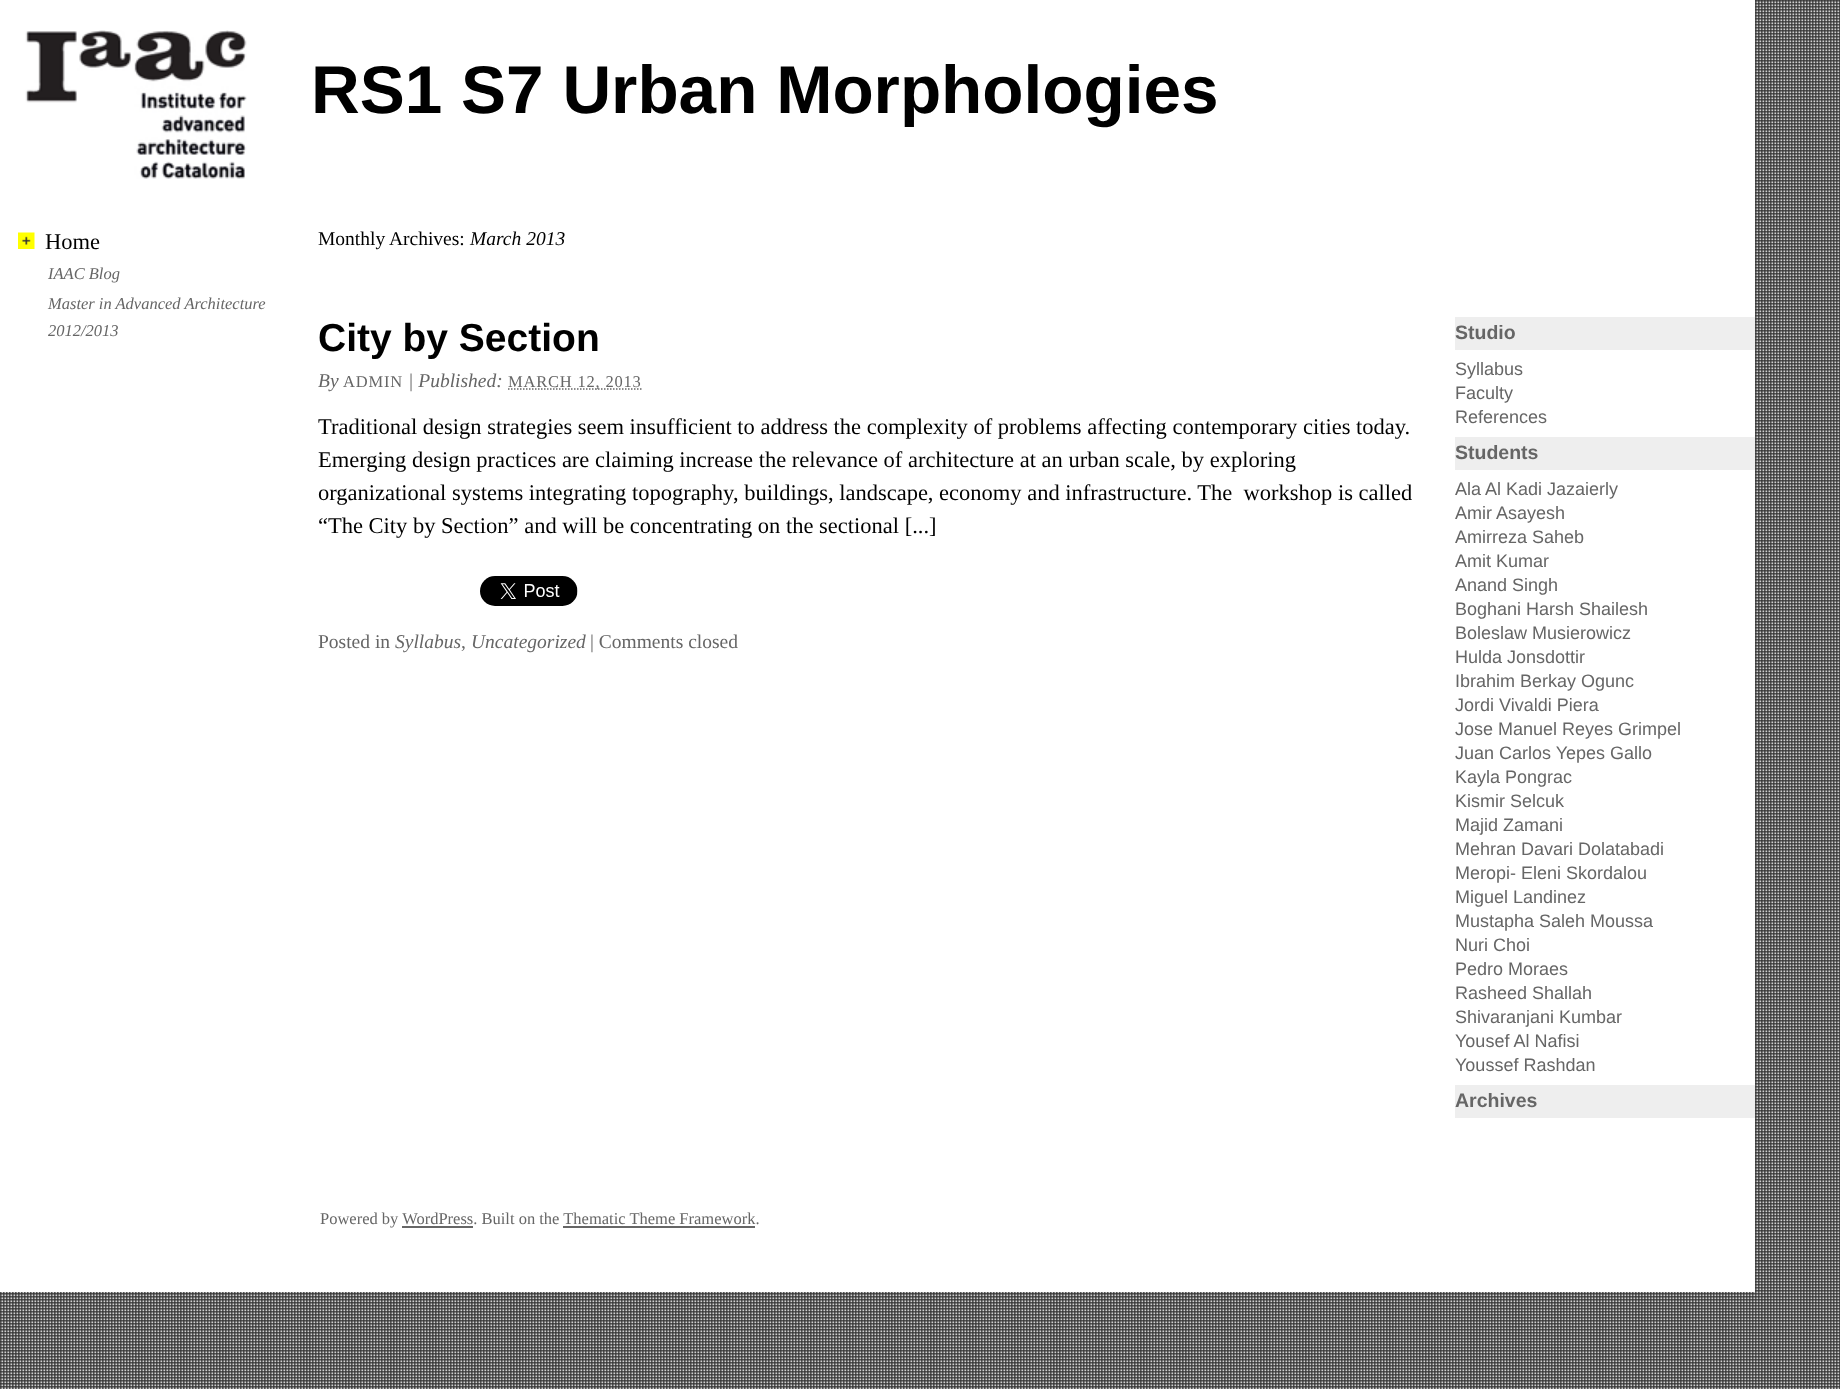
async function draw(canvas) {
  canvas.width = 1840
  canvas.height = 1389
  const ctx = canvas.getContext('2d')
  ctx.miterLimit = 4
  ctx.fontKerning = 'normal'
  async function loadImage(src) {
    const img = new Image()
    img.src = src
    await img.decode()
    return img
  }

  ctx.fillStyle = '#fff'
  ctx.fillRect(0, 0, 1840, 1389)
  ctx.drawImage(await loadImage('image0.png'), 0, 0, 1840, 1389)
  ctx.fillRect(0, 0, 1755, 1292)
  ctx.drawImage(await loadImage('image1.png'), 25, 30, 222, 149)
  ctx.font = 'bold 67.5px Liberation Sans'
  ctx.fillStyle = '#000'
  ctx.fillText('RS1 S7 Urban Morphologies', 311, 113)
  ctx.drawImage(await loadImage('image2.png'), 18, 232, 17, 17)
  ctx.font = '22.5px Liberation Serif'
  ctx.fillText('Home', 45, 249)
  ctx.font = 'italic 16.5px Liberation Serif'
  ctx.fillStyle = '#666'
  ctx.fillText('IAAC Blog', 48, 279)
  ctx.fillText('Master in Advanced Architecture', 48, 309)
  ctx.fillText('2012/2013', 48, 336)
  ctx.font = '19.5px Liberation Serif'
  ctx.fillStyle = '#000'
  ctx.fillText('Monthly Archives:', 318, 245)
  ctx.font = 'italic 19.5px Liberation Serif'
  ctx.fillText('March 2013', 470, 245)
  ctx.font = 'bold 39px Liberation Sans'
  ctx.fillText('City by Section', 318, 351)
  ctx.font = 'italic 19.5px Liberation Serif'
  ctx.fillStyle = '#666'
  ctx.fillText('By', 318, 387)
  ctx.letterSpacing = '0.8px'
  ctx.font = '16.5px Liberation Serif'
  ctx.fillText('ADMIN', 343, 387)
  ctx.letterSpacing = '0px'
  ctx.font = 'italic 19.5px Liberation Serif'
  ctx.fillText('| Published:', 408, 387)
  ctx.beginPath()
  ctx.moveTo(508, 389)
  ctx.lineTo(642, 389)
  ctx.strokeStyle = '#666'
  ctx.lineWidth = 1.5
  ctx.setLineDash([1.5, 1.5])
  ctx.stroke()
  ctx.letterSpacing = '0.8px'
  ctx.font = '16.5px Liberation Serif'
  ctx.fillText('MARCH 12, 2013', 508, 387)
  ctx.letterSpacing = '0px'
  ctx.font = '22.5px Liberation Serif'
  ctx.fillStyle = '#000'
  ctx.fillText('Traditional design strategies seem insufficient to address the complexity of problems affecting contemporary cities today.', 318, 434)
  ctx.fillText('Emerging design practices are claiming increase the relevance of architecture at an urban scale, by exploring', 318, 467)
  ctx.fillText('organizational systems integrating topography, buildings, landscape, economy and infrastructure. The  workshop is called', 318, 500)
  ctx.fillText('“The City by Section” and will be concentrating on the sectional [...]', 318, 533)
  ctx.drawImage(await loadImage('image3.png'), 480, 576, 98, 30)
  ctx.font = '19.5px Liberation Serif'
  ctx.fillStyle = '#666'
  ctx.fillText('Posted in', 318, 648)
  ctx.font = 'italic 19.5px Liberation Serif'
  ctx.fillText('Syllabus', 395, 648)
  ctx.font = '19.5px Liberation Serif'
  ctx.fillText(',', 461, 648)
  ctx.font = 'italic 19.5px Liberation Serif'
  ctx.fillText('Uncategorized', 471, 648)
  ctx.font = '19.5px Liberation Serif'
  ctx.fillText('| Comments closed', 590, 648)
  ctx.fillStyle = '#eee'
  ctx.fillRect(1455, 317, 300, 33)
  ctx.font = 'bold 19.5px Liberation Sans'
  ctx.fillStyle = '#666'
  ctx.fillText('Studio', 1455, 339)
  ctx.font = '18px Liberation Sans'
  ctx.fillText('Syllabus', 1455, 375)
  ctx.fillText('Faculty', 1455, 399)
  ctx.fillText('References', 1455, 423)
  ctx.fillStyle = '#eee'
  ctx.fillRect(1455, 437, 300, 33)
  ctx.font = 'bold 19.5px Liberation Sans'
  ctx.fillStyle = '#666'
  ctx.fillText('Students', 1455, 459)
  ctx.font = '18px Liberation Sans'
  ctx.fillText('Ala Al Kadi Jazaierly', 1455, 495)
  ctx.fillText('Amir Asayesh', 1455, 519)
  ctx.fillText('Amirreza Saheb', 1455, 543)
  ctx.fillText('Amit Kumar', 1455, 567)
  ctx.fillText('Anand Singh', 1455, 591)
  ctx.fillText('Boghani Harsh Shailesh', 1455, 615)
  ctx.fillText('Boleslaw Musierowicz', 1455, 639)
  ctx.fillText('Hulda Jonsdottir', 1455, 663)
  ctx.fillText('Ibrahim Berkay Ogunc', 1455, 687)
  ctx.fillText('Jordi Vivaldi Piera', 1455, 711)
  ctx.fillText('Jose Manuel Reyes Grimpel', 1455, 735)
  ctx.fillText('Juan Carlos Yepes Gallo', 1455, 759)
  ctx.fillText('Kayla Pongrac', 1455, 783)
  ctx.fillText('Kismir Selcuk', 1455, 807)
  ctx.fillText('Majid Zamani', 1455, 831)
  ctx.fillText('Mehran Davari Dolatabadi', 1455, 855)
  ctx.fillText('Meropi- Eleni Skordalou', 1455, 879)
  ctx.fillText('Miguel Landinez', 1455, 903)
  ctx.fillText('Mustapha Saleh Moussa', 1455, 927)
  ctx.fillText('Nuri Choi', 1455, 951)
  ctx.fillText('Pedro Moraes', 1455, 975)
  ctx.fillText('Rasheed Shallah', 1455, 999)
  ctx.fillText('Shivaranjani Kumbar', 1455, 1023)
  ctx.fillText('Yousef Al Nafisi', 1455, 1047)
  ctx.fillText('Youssef Rashdan', 1455, 1071)
  ctx.fillStyle = '#eee'
  ctx.fillRect(1455, 1085, 300, 33)
  ctx.font = 'bold 19.5px Liberation Sans'
  ctx.fillStyle = '#666'
  ctx.fillText('Archives', 1455, 1107)
  ctx.font = '16.5px Liberation Serif'
  ctx.fillText('Powered by WordPress. Built on the Thematic Theme Framework.', 320, 1224)
  ctx.fillRect(402, 1226, 71, 2)
  ctx.fillRect(563, 1226, 192, 2)
}

draw(document.querySelector('canvas'))
